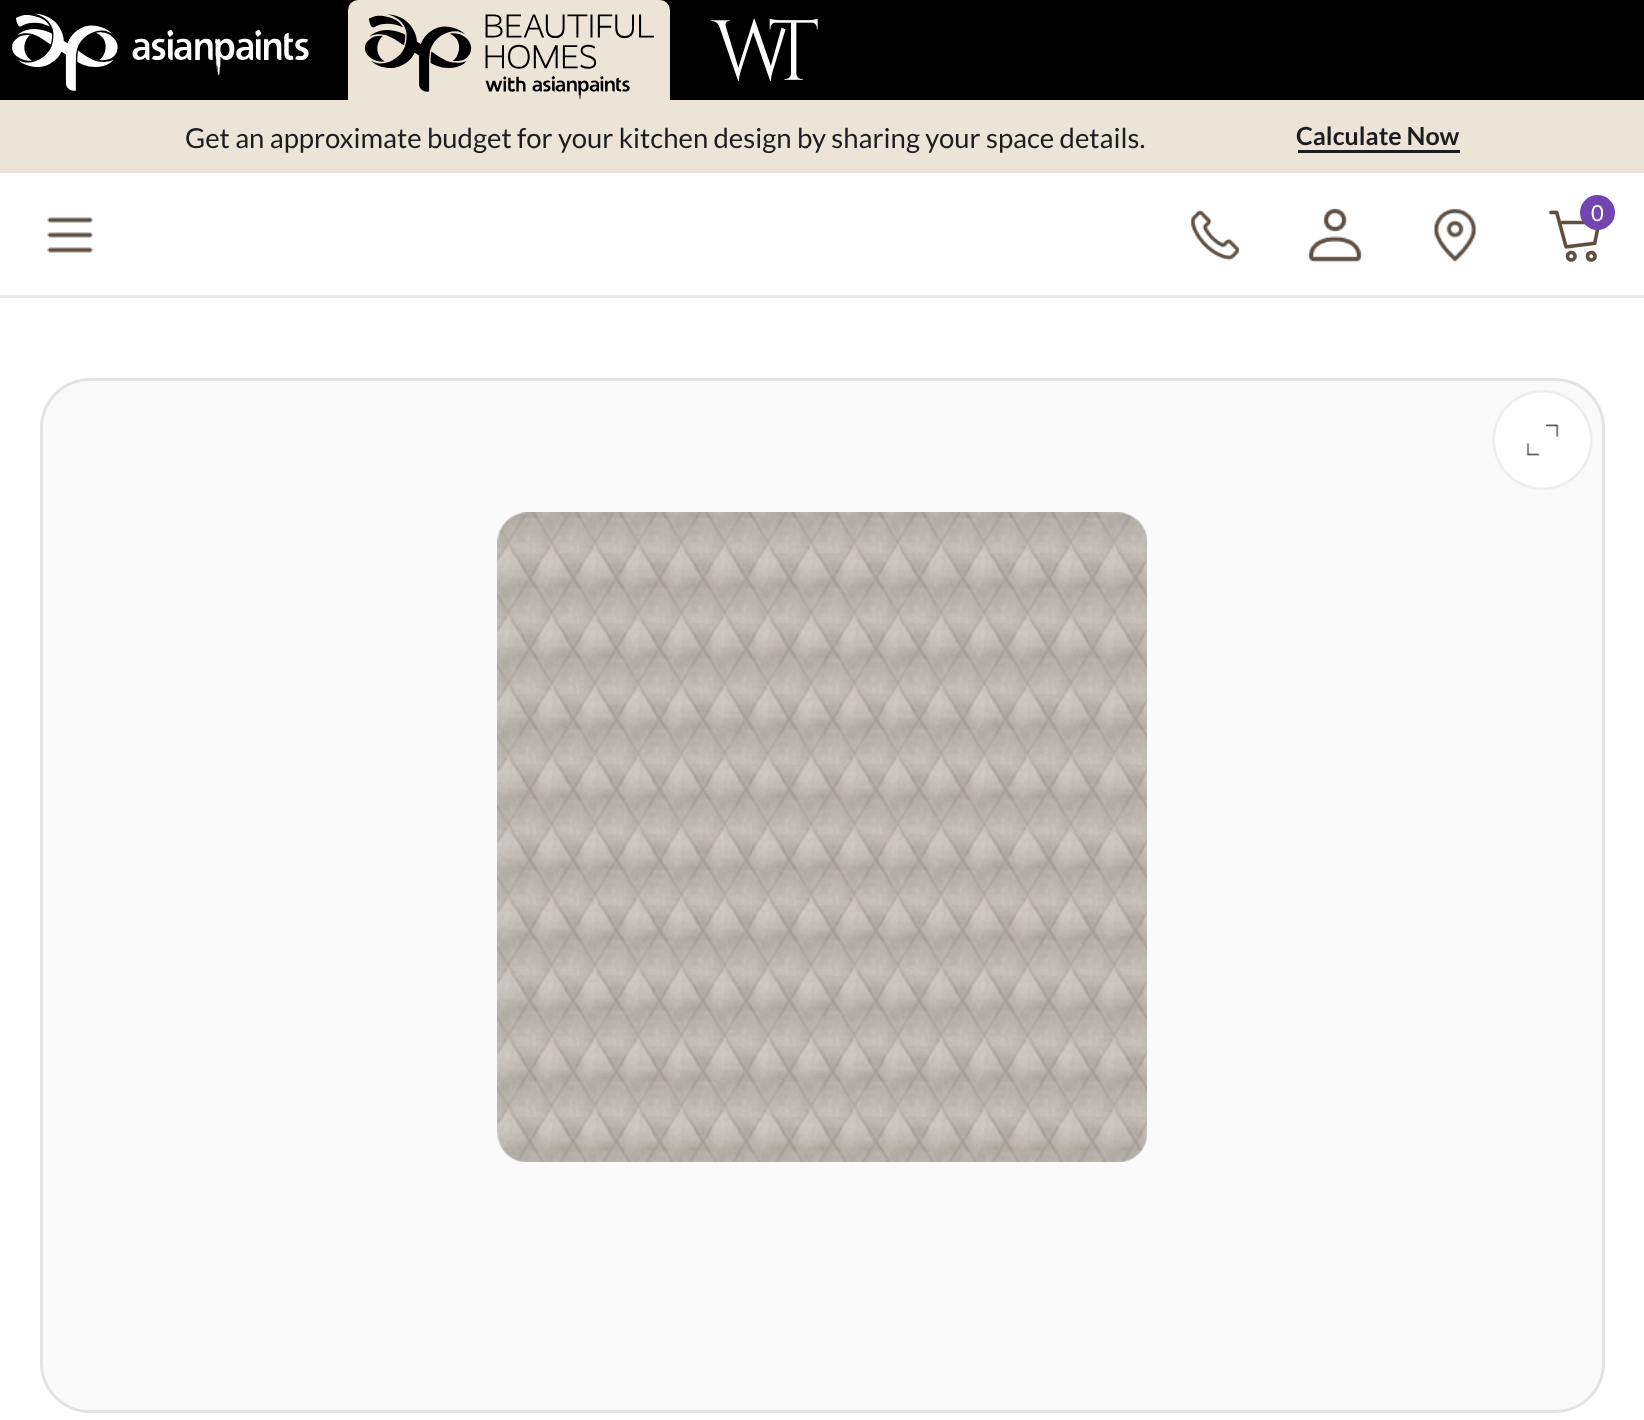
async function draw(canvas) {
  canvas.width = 1644
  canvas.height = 1420
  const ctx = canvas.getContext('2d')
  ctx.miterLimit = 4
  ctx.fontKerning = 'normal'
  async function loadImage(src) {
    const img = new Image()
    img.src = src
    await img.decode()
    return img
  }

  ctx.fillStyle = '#fff'
  ctx.fillRect(0, 0, 1644, 1420)
  ctx.fillStyle = '#000'
  ctx.fillRect(0, 0, 1644, 100)
  ctx.drawImage(await loadImage('image0.png'), 12, 13, 297, 78)
  ctx.fillStyle = '#ece5d7'
  ctx.beginPath()
  ctx.roundRect(348, 0, 322, 100, [10, 10, 0, 0])
  ctx.fill()
  ctx.drawImage(await loadImage('image1.png'), 365, 14, 289, 86)
  ctx.drawImage(await loadImage('image2.png'), 711, 18, 107, 63)
  ctx.fillRect(0, 100, 1644, 73)
  ctx.font = '27.5px Lato'
  ctx.fillStyle = '#1d1d1f'
  ctx.fillText('Get an approximate budget for your kitchen design by sharing your space details.', 185, 148)
  ctx.fillRect(1298, 150, 162, 3)
  ctx.font = 'bold 25px Lato'
  ctx.fillText('Calculate Now', 1296, 145)
  ctx.fillStyle = '#e8ebed'
  ctx.fillRect(0, 295, 1644, 3)
  ctx.drawImage(await loadImage('image3.png'), 1190, 210, 50, 51)
  ctx.drawImage(await loadImage('image4.png'), 1307, 207, 56, 56)
  ctx.drawImage(await loadImage('image5.png'), 1433, 208, 44, 55)
  ctx.drawImage(await loadImage('image6.png'), 1549, 210, 51, 52)
  ctx.fillStyle = '#7345b2'
  ctx.beginPath()
  ctx.arc(1597.5, 212.5, 17.5, 0, 2 * Math.PI)
  ctx.fill()
  ctx.font = '22px Lato'
  ctx.fillStyle = '#fff'
  ctx.fillText('0', 1591, 221)
  ctx.drawImage(await loadImage('image7.png'), 47, 217, 46, 36)
  ctx.fillStyle = '#fafafa'
  ctx.beginPath()
  ctx.roundRect(41.5, 379.5, 1562, 1032, 48.5)
  ctx.fill()
  ctx.strokeStyle = '#e3e3e3'
  ctx.lineWidth = 3
  ctx.stroke()
  ctx.drawImage(await loadImage('image8.png'), 1492, 390, 101, 100)
  ctx.drawImage(await loadImage('image9.png'), 497, 512, 650, 650)
}

draw(document.querySelector('canvas'))
